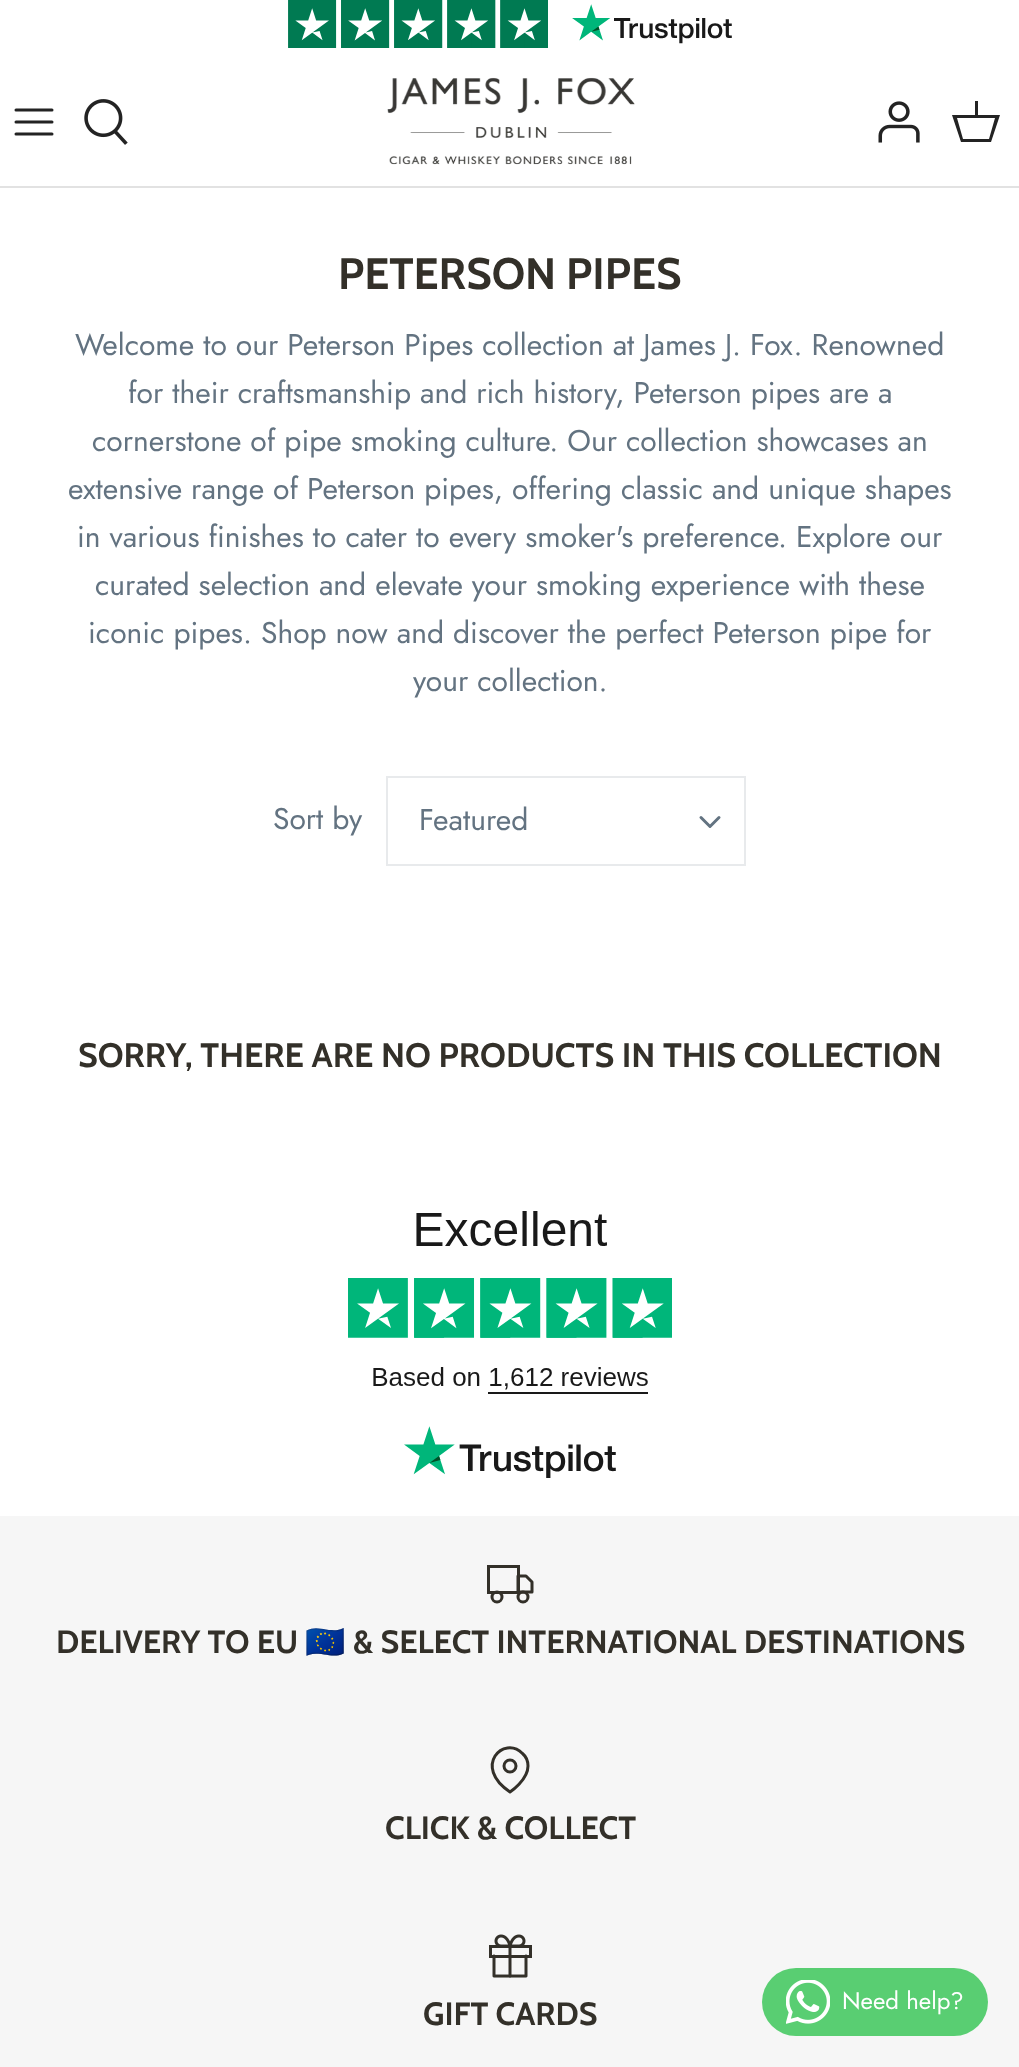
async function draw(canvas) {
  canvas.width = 1019
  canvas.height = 2067
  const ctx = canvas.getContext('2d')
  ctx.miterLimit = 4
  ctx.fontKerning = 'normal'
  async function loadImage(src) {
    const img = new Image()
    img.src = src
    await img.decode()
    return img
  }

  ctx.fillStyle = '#fff'
  ctx.fillRect(0, 0, 1019, 2067)
  ctx.drawImage(await loadImage('image0.png'), 288, 0, 444, 48)
  ctx.fillStyle = '#e2e2e2'
  ctx.fillRect(0, 186, 1019, 2)
  ctx.beginPath()
  ctx.moveTo(16, 122)
  ctx.lineTo(52, 122)
  ctx.moveTo(16, 110)
  ctx.lineTo(52, 110)
  ctx.moveTo(16, 134)
  ctx.lineTo(52, 134)
  ctx.strokeStyle = '#232323'
  ctx.lineWidth = 3
  ctx.lineCap = 'round'
  ctx.lineJoin = 'round'
  ctx.stroke()
  ctx.drawImage(await loadImage('image1.png'), 84, 99, 44, 46)
  ctx.drawImage(await loadImage('image2.png'), 387, 77, 248, 88)
  ctx.drawImage(await loadImage('image3.png'), 878, 101, 42, 42)
  ctx.fillStyle = '#232323'
  ctx.beginPath()
  ctx.moveTo(975, 115)
  ctx.lineTo(975, 101)
  ctx.lineTo(978, 101)
  ctx.lineTo(978, 115)
  ctx.lineTo(1000, 115)
  ctx.lineTo(991, 142)
  ctx.lineTo(961, 142)
  ctx.lineTo(952, 115)
  ctx.closePath()
  ctx.moveTo(957, 118)
  ctx.lineTo(963, 139)
  ctx.lineTo(989, 139)
  ctx.lineTo(995, 118)
  ctx.closePath()
  ctx.fill()
  ctx.font = 'bold 44px Cabin'
  ctx.fillStyle = '#333029'
  ctx.fillText('PETERSON PIPES', 338, 289)
  ctx.font = '30px Jost'
  ctx.fillStyle = '#637381'
  ctx.fillText('Welcome to our Peterson Pipes collection at James J. Fox. Renowned', 75, 355)
  ctx.fillText('for their craftsmanship and rich history, Peterson pipes are a', 128, 403)
  ctx.fillText('cornerstone of pipe smoking culture. Our collection showcases an', 92, 451)
  ctx.fillText('extensive range of Peterson pipes, offering classic and unique shapes', 68, 499)
  ctx.fillText('in various finishes to cater to every smoker\'s preference. Explore our', 77, 547)
  ctx.fillText('curated selection and elevate your smoking experience with these', 95, 595)
  ctx.fillText('iconic pipes. Shop now and discover the perfect Peterson pipe for', 88, 643)
  ctx.fillText('your collection.', 413, 691)
  ctx.fillText('Sort by', 273, 829)
  ctx.strokeStyle = '#e8eaec'
  ctx.lineWidth = 2
  ctx.lineJoin = 'miter'
  ctx.strokeRect(387, 777, 358, 88)
  ctx.fillText('Featured', 419, 830)
  ctx.beginPath()
  ctx.moveTo(701, 817.5)
  ctx.lineTo(710, 826.5)
  ctx.lineTo(719, 817.5)
  ctx.strokeStyle = '#637381'
  ctx.lineWidth = 3
  ctx.lineJoin = 'round'
  ctx.stroke()
  ctx.font = 'bold 34px Cabin'
  ctx.fillStyle = '#333029'
  ctx.fillText('SORRY, THERE ARE NO PRODUCTS IN THIS COLLECTION', 78, 1067)
  ctx.drawImage(await loadImage('image4.png'), 348, 1211, 324, 267)
  ctx.fillStyle = '#f6f6f6'
  ctx.fillRect(0, 1516, 1019, 551)
  ctx.strokeStyle = '#333029'
  ctx.lineJoin = 'miter'
  ctx.strokeRect(488.5, 1566.5, 30, 26)
  ctx.beginPath()
  ctx.moveTo(518, 1576)
  ctx.lineTo(526, 1576)
  ctx.lineTo(532, 1582)
  ctx.lineTo(532, 1592)
  ctx.lineTo(518, 1592)
  ctx.closePath()
  ctx.lineJoin = 'round'
  ctx.stroke()
  ctx.beginPath()
  ctx.arc(497, 1597, 5, 0, 2 * Math.PI)
  ctx.stroke()
  ctx.beginPath()
  ctx.arc(523, 1597, 5, 0, 2 * Math.PI)
  ctx.stroke()
  ctx.font = 'bold 32.25px Cabin'
  ctx.fillStyle = '#333029'
  ctx.fillText('DELIVERY TO EU', 56, 1653)
  ctx.font = 'bold 32.25px Noto Color Emoji'
  ctx.fillText('🇪🇺', 305, 1653)
  ctx.font = 'bold 32.25px Cabin'
  ctx.fillText('& SELECT INTERNATIONAL DESTINATIONS', 353, 1653)
  ctx.beginPath()
  ctx.moveTo(528, 1766)
  ctx.bezierCurveTo(528, 1780, 510, 1792, 510, 1792)
  ctx.bezierCurveTo(472, 1766.5, 504, 1734.5, 522.5, 1753.5)
  ctx.bezierCurveTo(526, 1756.5, 528, 1761, 528, 1766)
  ctx.closePath()
  ctx.stroke()
  ctx.beginPath()
  ctx.arc(510, 1766, 6, 0, 2 * Math.PI)
  ctx.stroke()
  ctx.fillText('CLICK & COLLECT', 385, 1839)
  ctx.drawImage(await loadImage('image5.png'), 489, 1934, 43, 44)
  ctx.fillText('GIFT CARDS', 423, 2025)
  ctx.fillStyle = '#59ce72'
  ctx.beginPath()
  ctx.roundRect(762, 1968, 226, 68, 34)
  ctx.fill()
  ctx.drawImage(await loadImage('image6.png'), 786, 1980, 44, 44)
  ctx.font = '24px Jost'
  ctx.fillStyle = '#fff'
  ctx.fillText('Need help?', 842, 2009)
}

draw(document.querySelector('canvas'))
